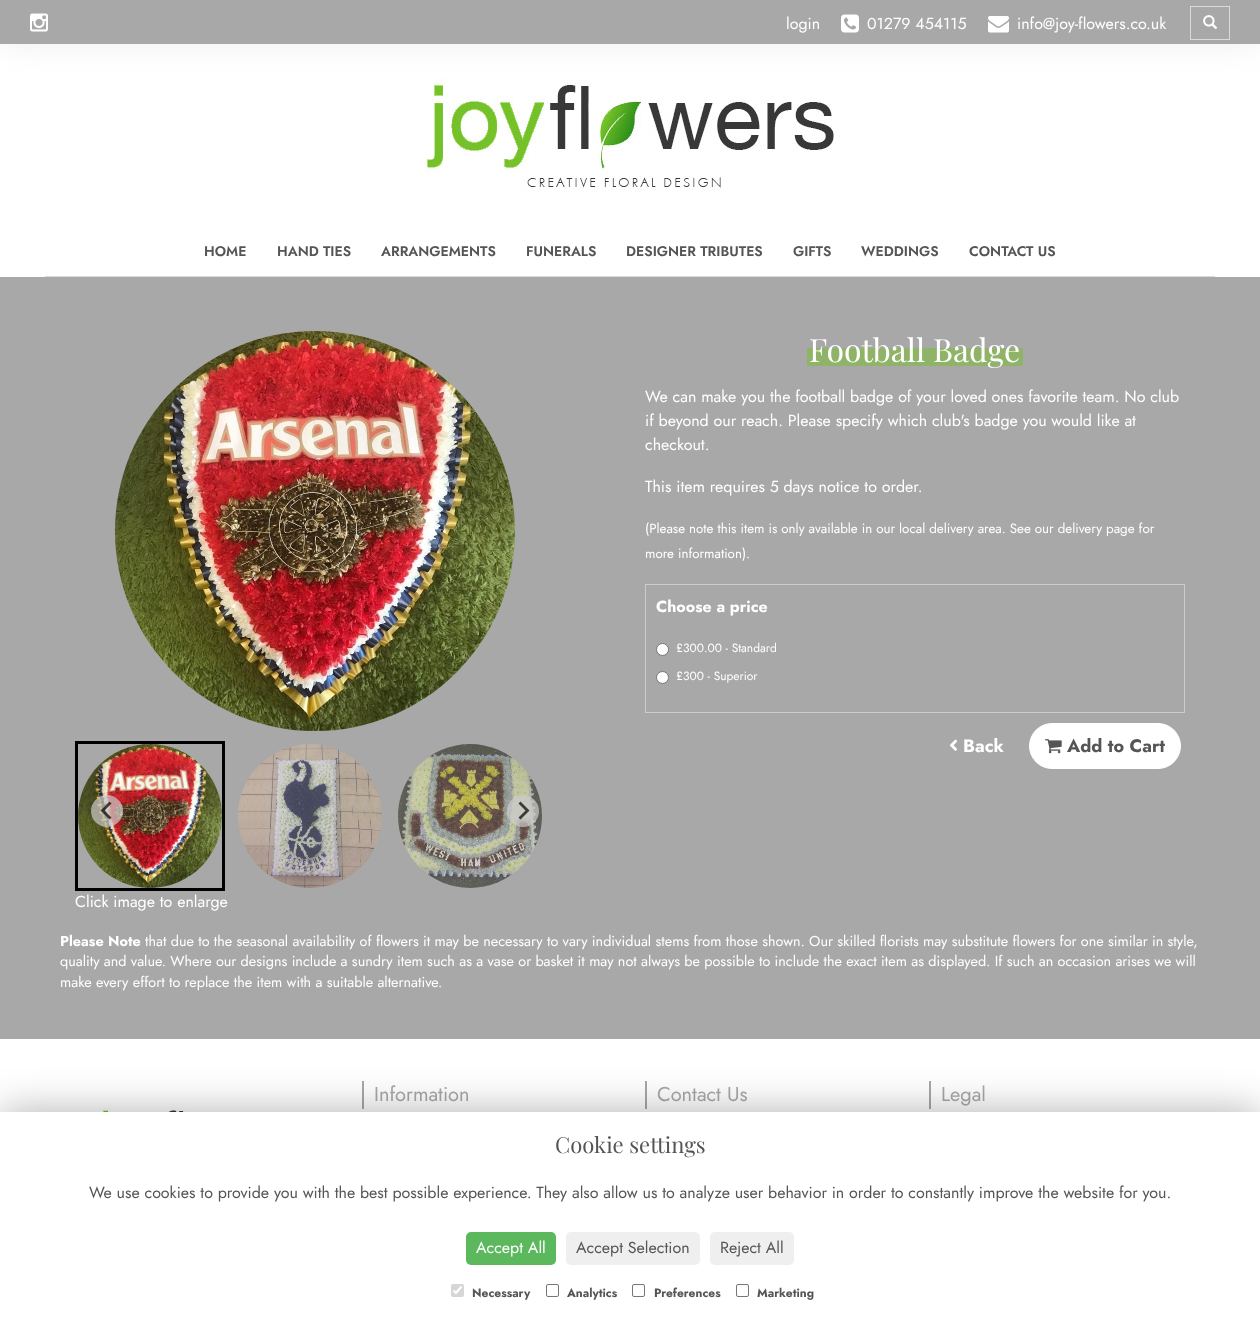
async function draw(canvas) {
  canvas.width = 1260
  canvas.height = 1327
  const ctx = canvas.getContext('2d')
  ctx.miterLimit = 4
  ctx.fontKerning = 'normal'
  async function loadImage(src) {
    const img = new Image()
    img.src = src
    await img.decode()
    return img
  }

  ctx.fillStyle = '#a8a8a8'
  ctx.fillRect(0, 0, 1260, 1327)
  ctx.fillStyle = '#fff'
  ctx.fillRect(0, 44, 1260, 233)
  ctx.drawImage(await loadImage('image4.png'), 425, 79, 409, 112)
  ctx.fillStyle = '#eee'
  ctx.filter = 'blur(15px)'
  ctx.beginPath()
  ctx.rect(0, 0, 1260, 44)
  ctx.fill()
  ctx.filter = 'none'
  ctx.fillStyle = '#a8a8a8'
  ctx.fillRect(0, 0, 1260, 44)
  ctx.drawImage(await loadImage('image0.png'), 30, 13, 18, 19)
  ctx.font = '16px Jost'
  ctx.fillStyle = '#fff'
  ctx.fillText('login', 786, 29)
  ctx.drawImage(await loadImage('image1.png'), 841, 14, 18, 19)
  ctx.fillText('01279 454115', 867, 29)
  ctx.drawImage(await loadImage('image2.png'), 988, 16, 21, 17)
  ctx.fillText('info@joy-flowers.co.uk', 1017, 29)
  ctx.strokeStyle = '#dadada'
  ctx.strokeRect(1190.5, 6.5, 39, 33)
  ctx.drawImage(await loadImage('image3.png'), 1203, 15, 14, 14)
  ctx.fillStyle = '#dadada'
  ctx.fillRect(45, 276, 1170, 1)
  ctx.font = '600 14px Jost'
  ctx.fillStyle = '#555'
  ctx.fillText('HOME', 204, 256)
  ctx.fillText('HAND TIES', 277, 256)
  ctx.fillText('ARRANGEMENTS', 381, 256)
  ctx.fillText('FUNERALS', 526, 256)
  ctx.fillText('DESIGNER TRIBUTES', 626, 256)
  ctx.fillText('GIFTS', 793, 256)
  ctx.fillText('WEDDINGS', 861, 256)
  ctx.fillText('CONTACT US', 969, 256)
  ctx.fillStyle = '#8fb467'
  ctx.fillRect(807, 348, 216, 18)
  ctx.font = '32px Playfair Display'
  ctx.fillStyle = '#fff'
  ctx.fillText('Football Badge', 809, 362)
  ctx.font = '16px Jost'
  ctx.fillText('We can make you the football badge of your loved ones favorite team. No club', 645, 402)
  ctx.fillText('if beyond our reach. Please specify which club\'s badge you would like at', 645, 426)
  ctx.fillText('checkout.', 645, 450)
  ctx.fillText('This item requires 5 days notice to order.', 645, 492)
  ctx.font = '13.35px Jost'
  ctx.fillText('(Please note this item is only available in our local delivery area. See our delivery page for', 645, 533)
  ctx.fillText('more information).', 645, 558)
  ctx.strokeStyle = '#ccc'
  ctx.strokeRect(645.5, 584.5, 539, 128)
  ctx.font = 'bold 16px Jost'
  ctx.fillText('Choose a price', 656, 612)
  ctx.beginPath()
  ctx.arc(662.5, 649.5, 6, 0, 2 * Math.PI)
  ctx.fill()
  ctx.strokeStyle = '#767676'
  ctx.stroke()
  ctx.font = '12px Jost'
  ctx.fillText('£300.00 - Standard', 676, 652)
  ctx.beginPath()
  ctx.arc(662.5, 677.5, 6, 0, 2 * Math.PI)
  ctx.fill()
  ctx.stroke()
  ctx.fillText('£300 - Superior', 676, 680)
  ctx.drawImage(await loadImage('image5.png'), 950, 739, 7, 12)
  ctx.font = 'bold 18px Jost'
  ctx.fillText('Back', 963, 752)
  ctx.beginPath()
  ctx.roundRect(1029.5, 723.5, 151, 45, 22.5)
  ctx.fill()
  ctx.strokeStyle = '#fff'
  ctx.stroke()
  ctx.drawImage(await loadImage('image6.png'), 1045, 739, 17, 15)
  ctx.fillStyle = '#555'
  ctx.fillText('Add to Cart', 1067, 752)
  ctx.drawImage(await loadImage('image7.png'), 115, 331, 400, 400)
  ctx.strokeStyle = '#000'
  ctx.lineWidth = 3
  ctx.strokeRect(76.5, 742.5, 147, 147)
  ctx.drawImage(await loadImage('image8.png'), 78, 744, 144, 144)
  ctx.drawImage(await loadImage('image9.png'), 238, 744, 144, 144)
  ctx.drawImage(await loadImage('image10.png'), 398, 744, 144, 144)
  ctx.fillStyle = '#ccccccb3'
  ctx.beginPath()
  ctx.arc(107, 811, 16, 0, 2 * Math.PI)
  ctx.fill()
  ctx.fillStyle = '#000000b3'
  ctx.beginPath()
  ctx.moveTo(109.5, 801.5)
  ctx.lineTo(111.5, 803.5)
  ctx.lineTo(104.5, 810.5)
  ctx.lineTo(111.5, 817.5)
  ctx.lineTo(109.5, 819.5)
  ctx.lineTo(100.5, 810.5)
  ctx.closePath()
  ctx.fill()
  ctx.fillStyle = '#ccccccb3'
  ctx.beginPath()
  ctx.arc(523, 811, 16, 0, 2 * Math.PI)
  ctx.fill()
  ctx.fillStyle = '#000000b3'
  ctx.beginPath()
  ctx.moveTo(520.5, 801.5)
  ctx.lineTo(518.5, 803.5)
  ctx.lineTo(525.5, 810.5)
  ctx.lineTo(518.5, 817.5)
  ctx.lineTo(520.5, 819.5)
  ctx.lineTo(529.5, 810.5)
  ctx.closePath()
  ctx.fill()
  ctx.font = '16px Jost'
  ctx.fillStyle = '#fff'
  ctx.fillText('Click image to enlarge', 75, 907)
  ctx.font = 'bold 14.4px Jost'
  ctx.fillText('Please Note', 60, 946)
  ctx.font = '14.4px Jost'
  ctx.fillText('that due to the seasonal availability of flowers it may be necessary to vary individual stems from those shown. Our skilled florists may substitute flowers for one similar in style,', 145, 946)
  ctx.fillText('quality and value. Where our designs include a sundry item such as a vase or basket it may not always be possible to include the exact item as displayed. If such an occasion arises we will', 60, 966)
  ctx.fillText('make every effort to replace the item with a suitable alternative.', 60, 987)
  ctx.fillRect(0, 1039, 1260, 73)
  ctx.fillStyle = '#a8a8a8'
  ctx.fillRect(362, 1081, 2, 28)
  ctx.font = '20px Jost'
  ctx.fillText('Information', 374, 1101)
  ctx.fillRect(645, 1081, 2, 28)
  ctx.fillText('Contact Us', 657, 1101)
  ctx.fillRect(929, 1081, 2, 28)
  ctx.fillText('Legal', 941, 1101)
  ctx.drawImage(await loadImage('image11.png'), 99, 1107, 211, 5)
  ctx.fillStyle = '#0000004f'
  ctx.filter = 'blur(20px)'
  ctx.beginPath()
  ctx.rect(0, 1112, 1260, 215)
  ctx.fill()
  ctx.filter = 'none'
  ctx.fillStyle = '#fff'
  ctx.fillRect(0, 1112, 1260, 215)
  ctx.font = '22px Playfair Display'
  ctx.fillStyle = '#555'
  ctx.fillText('Cookie settings', 555, 1153)
  ctx.font = '16px Jost'
  ctx.fillText('We use cookies to provide you with the best possible experience. They also allow us to analyze user behavior in order to constantly improve the website for you.', 89, 1198)
  ctx.fillStyle = '#5cb85c'
  ctx.beginPath()
  ctx.roundRect(466, 1232, 90, 33, 5)
  ctx.fill()
  ctx.fillStyle = '#fff'
  ctx.fillText('Accept All', 476, 1253)
  ctx.fillStyle = '#efefef'
  ctx.beginPath()
  ctx.roundRect(566, 1232, 134, 33, 5)
  ctx.fill()
  ctx.fillStyle = '#555'
  ctx.fillText('Accept Selection', 576, 1253)
  ctx.fillStyle = '#efefef'
  ctx.beginPath()
  ctx.roundRect(710, 1232, 84, 33, 5)
  ctx.fill()
  ctx.fillStyle = '#555'
  ctx.fillText('Reject All', 720, 1253)
  ctx.fillStyle = '#d6d6d6'
  ctx.beginPath()
  ctx.roundRect(451, 1284, 13, 13, 2)
  ctx.fill()
  ctx.beginPath()
  ctx.moveTo(453.5, 1290.5)
  ctx.lineTo(456, 1293)
  ctx.lineTo(461.5, 1286.5)
  ctx.strokeStyle = '#fff'
  ctx.lineWidth = 2.1
  ctx.stroke()
  ctx.font = 'bold 12px Jost'
  ctx.fillStyle = '#555'
  ctx.fillText('Necessary', 472, 1297)
  ctx.beginPath()
  ctx.roundRect(546.5, 1284.5, 12, 12, 1.5)
  ctx.strokeStyle = '#767676'
  ctx.lineWidth = 1
  ctx.stroke()
  ctx.fillText('Analytics', 567, 1297)
  ctx.beginPath()
  ctx.roundRect(632.5, 1284.5, 12, 12, 1.5)
  ctx.stroke()
  ctx.fillText('Preferences', 654, 1297)
  ctx.beginPath()
  ctx.roundRect(736.5, 1284.5, 12, 12, 1.5)
  ctx.stroke()
  ctx.fillText('Marketing', 757, 1297)
}

draw(document.querySelector('canvas'))
